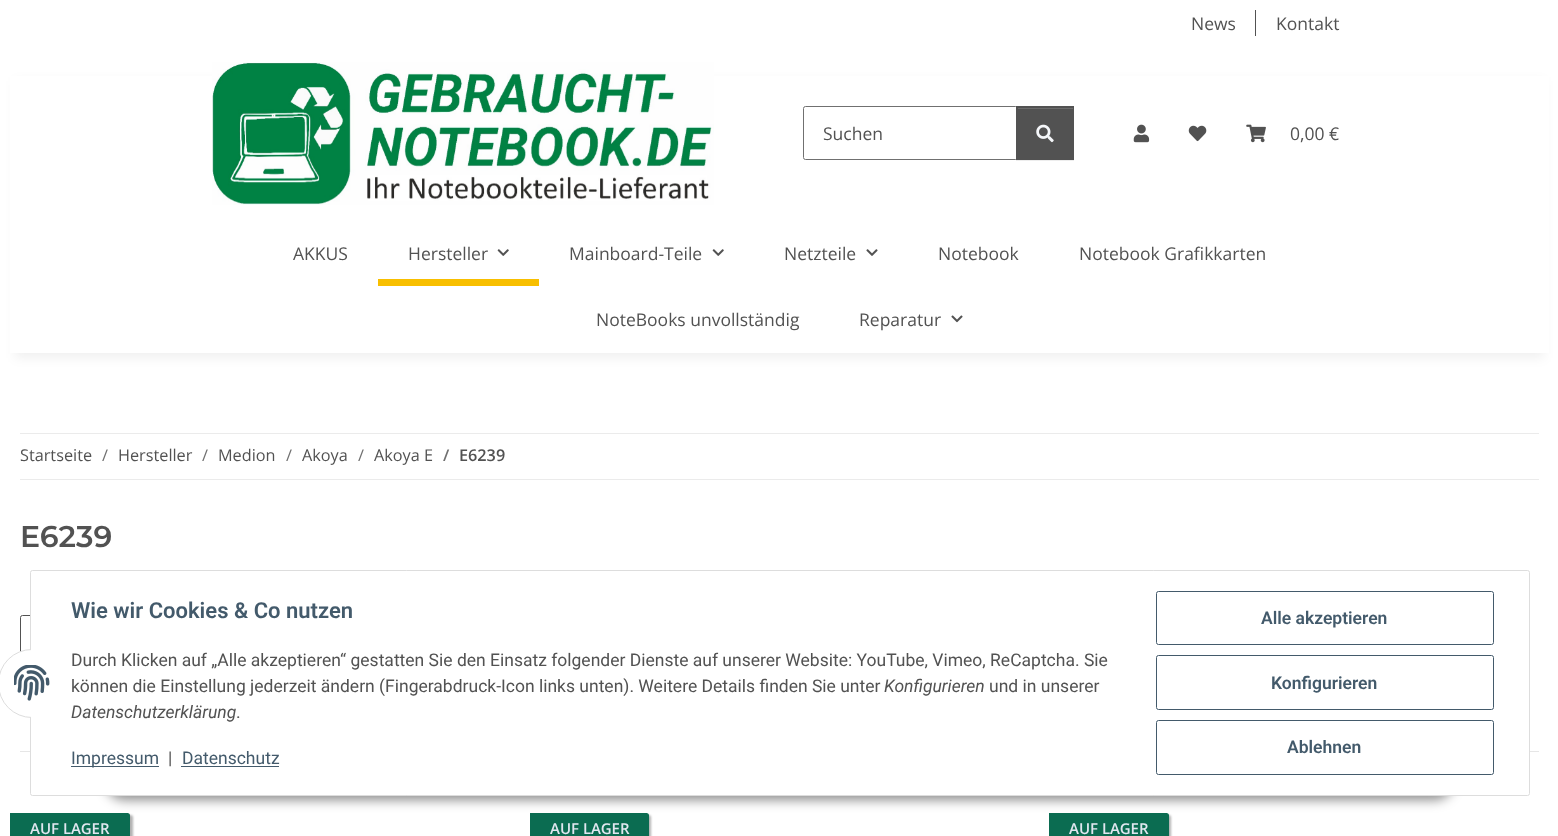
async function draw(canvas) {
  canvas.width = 1558
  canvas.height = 836
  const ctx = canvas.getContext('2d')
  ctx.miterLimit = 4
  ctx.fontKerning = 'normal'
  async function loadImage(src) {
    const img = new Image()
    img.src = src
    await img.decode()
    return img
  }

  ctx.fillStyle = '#fff'
  ctx.fillRect(0, 0, 1558, 836)
  ctx.font = '17.5px Open Sans'
  ctx.fillStyle = '#525252'
  ctx.fillText('News', 1191, 30)
  ctx.fillRect(1255, 10, 1, 26)
  ctx.fillText('Kontakt', 1276, 30)
  ctx.fillStyle = '#0000000f'
  ctx.filter = 'blur(5.5px)'
  ctx.beginPath()
  ctx.rect(15, 81, 1529, 277)
  ctx.fill()
  ctx.filter = 'none'
  ctx.fillStyle = '#fff'
  ctx.fillRect(10, 76, 1539, 277)
  ctx.drawImage(await loadImage('image0.png'), 212, 62, 502, 143)
  ctx.beginPath()
  ctx.roundRect(803.5, 106.5, 214, 53, 2)
  ctx.strokeStyle = '#707070'
  ctx.stroke()
  ctx.fillStyle = '#525252'
  ctx.fillText('Suchen', 823, 140)
  ctx.fillStyle = '#00000012'
  ctx.filter = 'blur(0.5px)'
  ctx.beginPath()
  ctx.rect(1016, 108, 58, 53)
  ctx.fill()
  ctx.filter = 'none'
  ctx.fillStyle = '#525252'
  ctx.fillRect(1016, 106, 58, 54)
  ctx.fillStyle = '#6c6c6c'
  ctx.fillRect(1018, 108, 55, 1)
  ctx.drawImage(await loadImage('image1.png'), 1036, 124, 18, 19)
  ctx.drawImage(await loadImage('image2.png'), 1133, 124, 17, 19)
  ctx.drawImage(await loadImage('image3.png'), 1188, 125, 19, 17)
  ctx.drawImage(await loadImage('image4.png'), 1246, 124, 20, 19)
  ctx.fillStyle = '#525252'
  ctx.fillText('0,00 €', 1290, 140)
  ctx.fillText('AKKUS', 293, 260)
  ctx.fillText('Hersteller', 408, 260)
  ctx.drawImage(await loadImage('image5.png'), 497, 249, 12, 7)
  ctx.fillStyle = '#f8bf00'
  ctx.fillRect(378, 279, 161, 7)
  ctx.fillStyle = '#525252'
  ctx.fillText('Mainboard-Teile', 569, 260)
  ctx.drawImage(await loadImage('image5.png'), 712, 249, 12, 7)
  ctx.fillText('Netzteile', 784, 260)
  ctx.drawImage(await loadImage('image6.png'), 866, 249, 12, 7)
  ctx.fillText('Notebook', 938, 260)
  ctx.fillText('Notebook Grafikkarten', 1079, 260)
  ctx.fillText('NoteBooks unvollständig', 596, 326)
  ctx.fillText('Reparatur', 859, 326)
  ctx.drawImage(await loadImage('image7.png'), 951, 315, 12, 8)
  ctx.fillStyle = '#ebebeb'
  ctx.fillRect(20, 433, 1519, 1)
  ctx.fillRect(20, 479, 1519, 1)
  ctx.font = '16.25px Open Sans'
  ctx.fillStyle = '#525252'
  ctx.fillText('Startseite', 20, 461)
  ctx.fillStyle = '#707070'
  ctx.fillText('/', 102, 461)
  ctx.fillStyle = '#525252'
  ctx.fillText('Hersteller', 118, 461)
  ctx.fillStyle = '#707070'
  ctx.fillText('/', 202, 461)
  ctx.fillStyle = '#525252'
  ctx.fillText('Medion', 218, 461)
  ctx.fillStyle = '#707070'
  ctx.fillText('/', 286, 461)
  ctx.fillStyle = '#525252'
  ctx.fillText('Akoya', 302, 461)
  ctx.fillStyle = '#707070'
  ctx.fillText('/', 358, 461)
  ctx.fillStyle = '#525252'
  ctx.fillText('Akoya E', 374, 461)
  ctx.font = '600 16.25px Open Sans'
  ctx.fillStyle = '#707070'
  ctx.fillText('/', 443, 461)
  ctx.fillStyle = '#525252'
  ctx.fillText('E6239', 459, 461)
  ctx.font = '600 30px Montserrat'
  ctx.fillText('E6239', 20, 547)
  ctx.beginPath()
  ctx.roundRect(20.5, 615.5, 150, 53, 2)
  ctx.strokeStyle = '#525252'
  ctx.stroke()
  ctx.fillStyle = '#e6e6e6'
  ctx.fillRect(20, 751, 1519, 1)
  ctx.fillStyle = '#0000004d'
  ctx.filter = 'blur(1px)'
  ctx.beginPath()
  ctx.roundRect(13, 815, 120, 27, 2.5)
  ctx.fill()
  ctx.filter = 'none'
  ctx.fillStyle = '#0b6c51'
  ctx.beginPath()
  ctx.moveTo(10, 813)
  ctx.lineTo(127.5, 813)
  ctx.bezierCurveTo(129, 813, 130, 814, 130, 815.5)
  ctx.lineTo(130, 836.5)
  ctx.bezierCurveTo(130, 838, 129, 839, 127.5, 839)
  ctx.lineTo(10, 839)
  ctx.closePath()
  ctx.fill()
  ctx.font = '600 15px Open Sans'
  ctx.fillStyle = '#e1e7f0'
  ctx.fillText('AUF LAGER', 30, 834)
  ctx.fillStyle = '#0000004d'
  ctx.filter = 'blur(1px)'
  ctx.beginPath()
  ctx.roundRect(533, 815, 118, 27, 2.5)
  ctx.fill()
  ctx.filter = 'none'
  ctx.fillStyle = '#0b6c51'
  ctx.beginPath()
  ctx.moveTo(530, 813)
  ctx.lineTo(646.5, 813)
  ctx.bezierCurveTo(648, 813, 649, 814, 649, 815.5)
  ctx.lineTo(649, 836.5)
  ctx.bezierCurveTo(649, 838, 648, 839, 646.5, 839)
  ctx.lineTo(530, 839)
  ctx.closePath()
  ctx.fill()
  ctx.fillStyle = '#e1e7f0'
  ctx.fillText('AUF LAGER', 550, 834)
  ctx.fillStyle = '#0000004d'
  ctx.filter = 'blur(1px)'
  ctx.beginPath()
  ctx.roundRect(1051, 815, 120, 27, 2.5)
  ctx.fill()
  ctx.filter = 'none'
  ctx.fillStyle = '#0b6c51'
  ctx.beginPath()
  ctx.moveTo(1049, 813)
  ctx.lineTo(1166.5, 813)
  ctx.bezierCurveTo(1168, 813, 1169, 814, 1169, 815.5)
  ctx.lineTo(1169, 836.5)
  ctx.bezierCurveTo(1169, 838, 1168, 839, 1166.5, 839)
  ctx.lineTo(1049, 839)
  ctx.closePath()
  ctx.fill()
  ctx.fillStyle = '#e1e7f0'
  ctx.fillText('AUF LAGER', 1069, 834)
  ctx.fillStyle = '#00000073'
  ctx.filter = 'blur(6px)'
  ctx.beginPath()
  ctx.roundRect(105, 760, 1349, 40, 20)
  ctx.fill()
  ctx.filter = 'none'
  ctx.fillStyle = '#fff'
  ctx.beginPath()
  ctx.roundRect(30.5, 570.5, 1499, 225, 2)
  ctx.fill()
  ctx.strokeStyle = '#ddd'
  ctx.stroke()
  ctx.beginPath()
  ctx.roundRect(-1.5, 649.5, 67, 68, 33.5)
  ctx.fill()
  ctx.stroke()
  ctx.fillRect(31, 649, 35, 69)
  ctx.drawImage(await loadImage('image8.png'), 14, 665, 36, 36)
  ctx.font = '600 22px Roboto'
  ctx.fillStyle = '#435a6b'
  ctx.fillText('Wie wir Cookies & Co nutzen', 71, 618)
  ctx.font = '17.5px Roboto'
  ctx.fillStyle = '#525252'
  ctx.fillText('Durch Klicken auf „Alle akzeptieren“ gestatten Sie den Einsatz folgender Dienste auf unserer Website: YouTube, Vimeo, ReCaptcha. Sie', 71, 666)
  ctx.fillText('können die Einstellung jederzeit ändern (Fingerabdruck-Icon links unten). Weitere Details finden Sie unter', 71, 692)
  ctx.font = 'italic 17.5px Roboto'
  ctx.fillText('Konfigurieren', 884, 692)
  ctx.font = '17.5px Roboto'
  ctx.fillText('und in unserer', 989, 692)
  ctx.font = 'italic 17.5px Roboto'
  ctx.fillText('Datenschutzerklärung', 71, 718)
  ctx.font = '17.5px Roboto'
  ctx.fillText('.', 236, 718)
  ctx.fillStyle = '#435a6b'
  ctx.fillRect(71, 766, 88, 1)
  ctx.fillText('Impressum', 71, 764)
  ctx.fillStyle = '#525252'
  ctx.fillText('|', 168, 764)
  ctx.fillStyle = '#435a6b'
  ctx.fillText('Datenschutz', 182, 764)
  ctx.fillRect(181, 766, 98, 1)
  ctx.beginPath()
  ctx.roundRect(1156.5, 591.5, 337, 53, 2)
  ctx.strokeStyle = '#435a6b'
  ctx.stroke()
  ctx.font = '600 17.5px Roboto'
  ctx.fillText('Alle akzeptieren', 1261, 624)
  ctx.beginPath()
  ctx.roundRect(1156.5, 655.5, 337, 54, 2)
  ctx.stroke()
  ctx.fillText('Konfigurieren', 1271, 689)
  ctx.beginPath()
  ctx.roundRect(1156.5, 720.5, 337, 54, 2)
  ctx.stroke()
  ctx.fillText('Ablehnen', 1287, 753)
}

draw(document.querySelector('canvas'))
